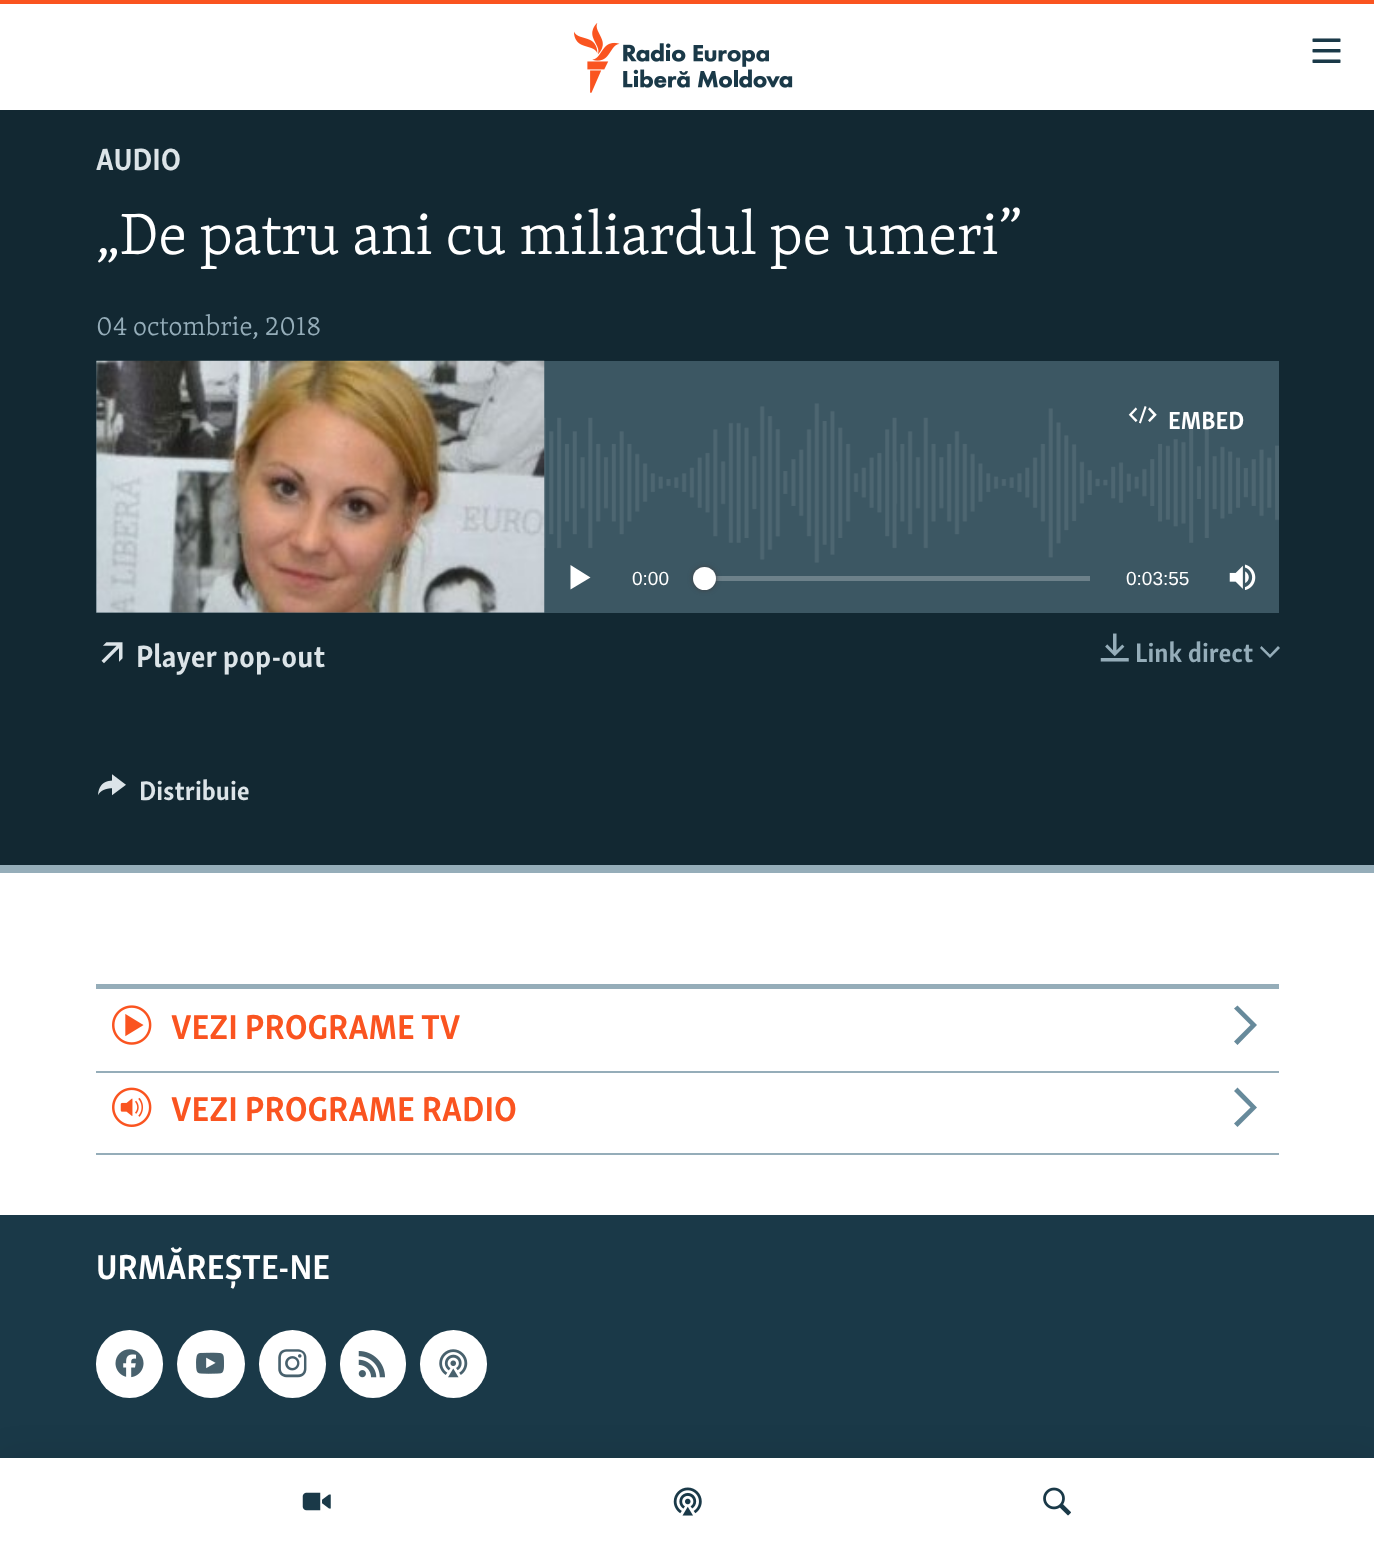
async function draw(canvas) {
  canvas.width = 1374
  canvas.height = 1544
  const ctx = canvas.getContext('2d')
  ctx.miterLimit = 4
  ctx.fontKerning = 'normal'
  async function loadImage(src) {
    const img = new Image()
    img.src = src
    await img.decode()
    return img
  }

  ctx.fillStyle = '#fff'
  ctx.fillRect(0, 0, 1374, 1544)
  ctx.fillStyle = '#fa5420'
  ctx.fillRect(0, 0, 1374, 4)
  ctx.drawImage(await loadImage('image0.png'), 574, 23, 219, 70)
  ctx.drawImage(await loadImage('image1.png'), 1312, 38, 29, 25)
  ctx.fillStyle = '#1a3948'
  ctx.fillRect(0, 1215, 1374, 243)
  ctx.fillStyle = '#0000001a'
  ctx.filter = 'blur(17.5px)'
  ctx.beginPath()
  ctx.rect(0, 1458, 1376, 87)
  ctx.fill()
  ctx.filter = 'none'
  ctx.fillStyle = '#fff'
  ctx.fillRect(0, 1458, 1374, 86)
  ctx.drawImage(await loadImage('image2.png'), 302, 1492, 29, 19)
  ctx.drawImage(await loadImage('image3.png'), 673, 1487, 29, 29)
  ctx.drawImage(await loadImage('image4.png'), 1043, 1487, 28, 29)
  ctx.fillStyle = '#122832'
  ctx.fillRect(0, 110, 1374, 755)
  ctx.fillStyle = '#95adb9'
  ctx.fillRect(0, 865, 1374, 8)
  ctx.font = 'bold 31.5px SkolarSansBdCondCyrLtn'
  ctx.fillStyle = '#dce4e8'
  ctx.fillText('AUDIO', 96, 170)
  ctx.font = '300 59.8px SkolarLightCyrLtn'
  ctx.fillStyle = '#fff'
  ctx.fillText('„De patru ani cu miliardul pe umeri”', 96, 254)
  ctx.font = '300 27.5px SkolarLightCyrLtn'
  ctx.fillStyle = '#95adb9'
  ctx.fillText('04 octombrie, 2018', 96, 335)
  ctx.fillStyle = '#3c5763'
  ctx.fillRect(96, 361, 1183, 252)
  ctx.drawImage(await loadImage('image5.png'), 96, 403, 1183, 160)
  ctx.drawImage(await loadImage('image6.png'), 96, 360, 449, 253)
  ctx.drawImage(await loadImage('image7.png'), 1128, 406, 29, 18)
  ctx.font = 'bold 25.5px SkolarSansBdCondCyrLtn'
  ctx.fillStyle = '#fff'
  ctx.fillText('EMBED', 1168, 429)
  ctx.beginPath()
  ctx.moveTo(570.5, 589.5)
  ctx.lineTo(590.5, 577.5)
  ctx.lineTo(570.5, 565)
  ctx.closePath()
  ctx.fill()
  ctx.font = '19px Liberation Sans'
  ctx.fillText('0:00', 632, 585)
  ctx.fillStyle = '#6d818a'
  ctx.fillRect(715, 576, 375, 5)
  ctx.fillStyle = '#414144'
  ctx.filter = 'blur(2.5px)'
  ctx.beginPath()
  ctx.roundRect(693, 567, 23, 23, 11.5)
  ctx.fill()
  ctx.filter = 'none'
  ctx.fillStyle = '#fff'
  ctx.beginPath()
  ctx.arc(704.5, 578.5, 11.5, 0, 2 * Math.PI)
  ctx.fill()
  ctx.fillText('0:03:55', 1126, 585)
  ctx.drawImage(await loadImage('image8.png'), 1229, 564, 27, 26)
  ctx.drawImage(await loadImage('image9.png'), 101, 642, 22, 22)
  ctx.font = 'bold 31.5px SkolarSansBdCondCyrLtn'
  ctx.fillStyle = '#dce4e8'
  ctx.fillText('Player pop-out', 136, 667)
  ctx.drawImage(await loadImage('image10.png'), 1100, 633, 29, 29)
  ctx.font = 'bold 27.5px SkolarSansBdCondCyrLtn'
  ctx.fillStyle = '#95adb9'
  ctx.fillText('Link direct', 1135, 662)
  ctx.beginPath()
  ctx.moveTo(1260, 648)
  ctx.lineTo(1270, 658)
  ctx.lineTo(1280, 648)
  ctx.lineTo(1278, 646)
  ctx.lineTo(1270, 654.5)
  ctx.lineTo(1261.5, 646)
  ctx.closePath()
  ctx.fill()
  ctx.drawImage(await loadImage('image11.png'), 98, 774, 28, 22)
  ctx.fillStyle = '#dce4e8'
  ctx.fillText('Distribuie', 139, 800)
  ctx.fillStyle = '#95adb9'
  ctx.fillRect(96, 984, 1183, 5)
  ctx.fillRect(96, 1071, 1183, 2)
  ctx.drawImage(await loadImage('image12.png'), 112, 1005, 40, 40)
  ctx.font = 'bold 35.5px SkolarSansBdCondCyrLtn'
  ctx.fillStyle = '#fa5420'
  ctx.fillText('VEZI PROGRAME TV', 171, 1039)
  ctx.fillStyle = '#678a9b'
  ctx.beginPath()
  ctx.moveTo(1237.5, 1045)
  ctx.lineTo(1257, 1025)
  ctx.lineTo(1237.5, 1005.5)
  ctx.lineTo(1234, 1008.5)
  ctx.lineTo(1250.5, 1025)
  ctx.lineTo(1234, 1041.5)
  ctx.closePath()
  ctx.fill()
  ctx.fillStyle = '#95adb9'
  ctx.fillRect(96, 1153, 1183, 2)
  ctx.drawImage(await loadImage('image13.png'), 112, 1087, 40, 40)
  ctx.fillStyle = '#fa5420'
  ctx.fillText('VEZI PROGRAME RADIO', 171, 1121)
  ctx.fillStyle = '#678a9b'
  ctx.beginPath()
  ctx.moveTo(1237.5, 1127)
  ctx.lineTo(1257, 1107.5)
  ctx.lineTo(1237.5, 1087.5)
  ctx.lineTo(1234, 1091)
  ctx.lineTo(1250.5, 1107.5)
  ctx.lineTo(1234, 1123.5)
  ctx.closePath()
  ctx.fill()
  ctx.fillStyle = '#fff'
  ctx.fillText('URMĂREȘTE-NE', 96, 1279)
  ctx.beginPath()
  ctx.roundRect(96, 1330, 67, 68, 33.5)
  ctx.fill()
  ctx.drawImage(await loadImage('image14.png'), 115, 1349, 29, 29)
  ctx.beginPath()
  ctx.arc(211, 1364, 34, 0, 2 * Math.PI)
  ctx.fill()
  ctx.drawImage(await loadImage('image15.png'), 196, 1352, 28, 22)
  ctx.beginPath()
  ctx.roundRect(259, 1330, 67, 68, 33.5)
  ctx.fill()
  ctx.drawImage(await loadImage('image16.png'), 278, 1349, 29, 29)
  ctx.beginPath()
  ctx.roundRect(340, 1330, 66, 68, 33)
  ctx.fill()
  ctx.drawImage(await loadImage('image17.png'), 358, 1351, 27, 27)
  ctx.beginPath()
  ctx.roundRect(420, 1330, 67, 68, 33.5)
  ctx.fill()
  ctx.drawImage(await loadImage('image18.png'), 439, 1349, 29, 29)
}

draw(document.querySelector('canvas'))
